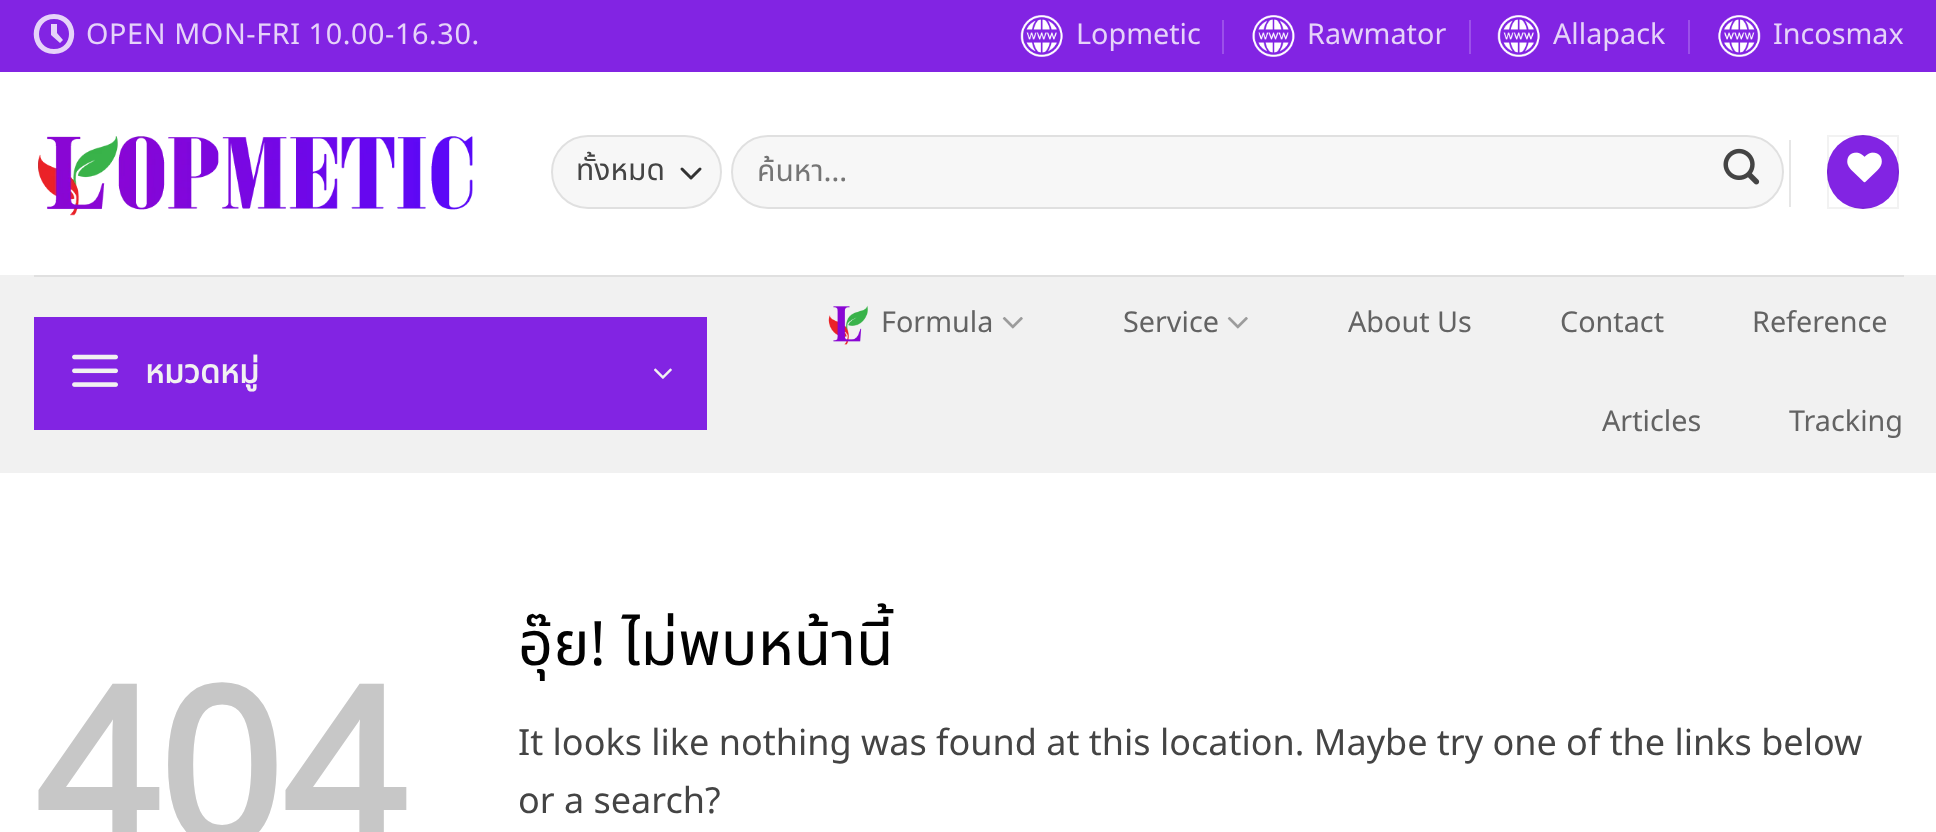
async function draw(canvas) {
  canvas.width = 1936
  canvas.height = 832
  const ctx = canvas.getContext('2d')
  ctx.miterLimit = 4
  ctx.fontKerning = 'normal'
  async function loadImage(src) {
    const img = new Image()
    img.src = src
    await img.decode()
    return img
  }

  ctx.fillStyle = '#fff'
  ctx.fillRect(0, 0, 1936, 832)
  ctx.fillStyle = '#8224e3'
  ctx.fillRect(0, 0, 1936, 72)
  ctx.fillStyle = '#e6d3f9'
  ctx.beginPath()
  ctx.moveTo(60, 43)
  ctx.lineTo(51, 35)
  ctx.lineTo(51, 24)
  ctx.lineTo(57, 24)
  ctx.lineTo(57, 33)
  ctx.lineTo(63, 40)
  ctx.closePath()
  ctx.moveTo(54, 14)
  ctx.bezierCurveTo(27, 14, 27, 54, 54, 54)
  ctx.bezierCurveTo(81, 54, 81, 14, 54, 14)
  ctx.closePath()
  ctx.moveTo(54, 49)
  ctx.bezierCurveTo(34, 49, 34, 19, 54, 19)
  ctx.bezierCurveTo(74, 19, 74, 49, 54, 49)
  ctx.closePath()
  ctx.fill()
  ctx.letterSpacing = '0.6px'
  ctx.font = '28.75px Noto Sans Thai'
  ctx.fillText('OPEN MON-FRI 10.00-16.30.', 86, 44)
  ctx.drawImage(await loadImage('image0.png'), 1020, 15, 43, 42)
  ctx.letterSpacing = '0px'
  ctx.fillText('Lopmetic', 1076, 44)
  ctx.fillStyle = '#9b50e9'
  ctx.fillRect(1222, 20, 2, 34)
  ctx.drawImage(await loadImage('image1.png'), 1252, 15, 43, 42)
  ctx.fillStyle = '#e6d3f9'
  ctx.fillText('Rawmator', 1307, 44)
  ctx.fillStyle = '#9b50e9'
  ctx.fillRect(1469, 20, 2, 34)
  ctx.drawImage(await loadImage('image0.png'), 1497, 15, 43, 42)
  ctx.fillStyle = '#e6d3f9'
  ctx.fillText('Allapack', 1553, 44)
  ctx.fillStyle = '#9b50e9'
  ctx.fillRect(1688, 20, 2, 34)
  ctx.drawImage(await loadImage('image2.png'), 1718, 15, 43, 42)
  ctx.fillStyle = '#e6d3f9'
  ctx.fillText('Incosmax', 1773, 44)
  ctx.drawImage(await loadImage('image3.png'), 38, 136, 435, 80)
  ctx.fillStyle = '#f7f7f7'
  ctx.beginPath()
  ctx.roundRect(551, 135, 171, 74, 37)
  ctx.fill()
  ctx.beginPath()
  ctx.moveTo(682, 169)
  ctx.lineTo(691, 178)
  ctx.lineTo(700, 169)
  ctx.strokeStyle = '#333'
  ctx.lineWidth = 3
  ctx.lineCap = 'round'
  ctx.lineJoin = 'round'
  ctx.stroke()
  ctx.beginPath()
  ctx.roundRect(552, 136, 169, 72, 36)
  ctx.strokeStyle = '#00000017'
  ctx.lineWidth = 2
  ctx.lineJoin = 'miter'
  ctx.stroke()
  ctx.save()
  ctx.beginPath()
  ctx.rect(576, 149, 104, 47)
  ctx.clip()
  ctx.font = '30px Noto Sans Thai'
  ctx.fillStyle = '#444'
  ctx.fillText('ทั้งหมด', 576, 180)
  ctx.restore()
  ctx.beginPath()
  ctx.roundRect(731, 135, 1053, 74, 37)
  ctx.fill()
  ctx.beginPath()
  ctx.roundRect(732, 136, 1051, 72, 36)
  ctx.stroke()
  ctx.save()
  ctx.beginPath()
  ctx.rect(756, 151, 995, 45)
  ctx.clip()
  ctx.font = '30px Noto Sans Thai'
  ctx.fillStyle = '#757575'
  ctx.fillText('ค้นหา…', 757, 181)
  ctx.restore()
  ctx.drawImage(await loadImage('image4.png'), 1723, 148, 37, 37)
  ctx.fillStyle = '#e6e6e6'
  ctx.fillRect(1789, 140, 2, 67)
  ctx.fillStyle = '#8224e3'
  ctx.beginPath()
  ctx.roundRect(1827, 135, 72, 74, 36)
  ctx.fill()
  ctx.strokeStyle = '#0000000d'
  ctx.strokeRect(1828, 136, 70, 72)
  ctx.drawImage(await loadImage('image5.png'), 1847, 152, 35, 31)
  ctx.fillStyle = '#f1f1f1'
  ctx.fillRect(0, 275, 1936, 198)
  ctx.fillStyle = '#e0e0e0'
  ctx.fillRect(34, 275, 1870, 2)
  ctx.fillStyle = '#8224e3'
  ctx.fillRect(34, 317, 673, 113)
  ctx.drawImage(await loadImage('image6.png'), 72, 354, 46, 33)
  ctx.font = 'bold 32.5px Noto Sans Thai'
  ctx.fillStyle = '#f1f1f1'
  ctx.fillText('หมวดหมู่', 145, 383)
  ctx.drawImage(await loadImage('image7.png'), 654, 368, 18, 11)
  ctx.drawImage(await loadImage('image8.png'), 828, 305, 40, 40)
  ctx.font = '28.75px Noto Sans Thai'
  ctx.fillStyle = '#636363'
  ctx.fillText('Formula', 881, 332)
  ctx.drawImage(await loadImage('image9.png'), 1002, 317, 21, 12)
  ctx.fillText('Service', 1123, 332)
  ctx.drawImage(await loadImage('image9.png'), 1227, 317, 21, 12)
  ctx.fillText('About Us', 1348, 332)
  ctx.fillText('Contact', 1560, 332)
  ctx.fillText('Reference', 1752, 332)
  ctx.fillText('Articles', 1602, 431)
  ctx.fillText('Tracking', 1789, 431)
  ctx.font = 'bold 216px Noto Sans Thai'
  ctx.fillStyle = '#c7c7c7'
  ctx.fillText('404', 34, 845)
  ctx.font = '61.25px Noto Sans Thai'
  ctx.fillStyle = '#020202'
  ctx.fillText('อุ๊ย! ไม่พบหน้านี้', 518, 665)
  ctx.font = '36px Noto Sans Thai'
  ctx.fillStyle = '#444'
  ctx.fillText('It looks like nothing was found at this location. Maybe try one of the links below', 518, 755)
  ctx.fillText('or a search?', 518, 813)
}

draw(document.querySelector('canvas'))
